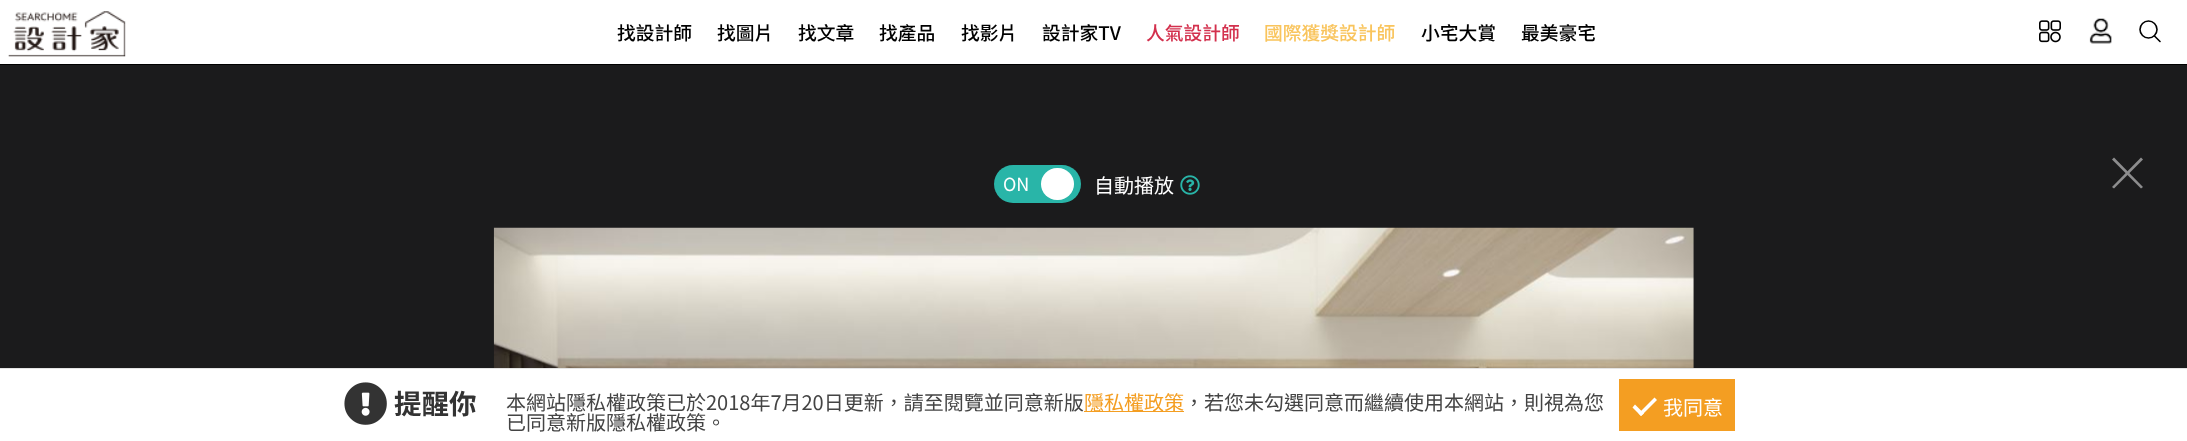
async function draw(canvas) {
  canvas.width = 2187
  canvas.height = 441
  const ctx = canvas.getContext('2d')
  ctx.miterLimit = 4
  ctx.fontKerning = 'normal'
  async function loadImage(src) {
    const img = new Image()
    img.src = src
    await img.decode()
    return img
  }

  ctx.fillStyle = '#fff'
  ctx.fillRect(0, 0, 2187, 441)
  ctx.fillStyle = '#000'
  ctx.fillRect(0, 64, 2187, 1)
  ctx.drawImage(await loadImage('image0.png'), 8, 11, 118, 46)
  ctx.font = '500 18.75px Noto Sans TC'
  ctx.fillText('找設計師', 617, 40)
  ctx.fillText('找圖片', 717, 40)
  ctx.fillText('找文章', 798, 40)
  ctx.fillText('找產品', 879, 40)
  ctx.fillText('找影片', 961, 40)
  ctx.fillText('設計家TV', 1042, 40)
  ctx.fillStyle = '#d3304d'
  ctx.fillText('人氣設計師', 1146, 40)
  ctx.fillStyle = '#f9c45c'
  ctx.fillText('國際獲獎設計師', 1264, 40)
  ctx.fillStyle = '#000'
  ctx.fillText('小宅大賞', 1421, 40)
  ctx.fillText('最美豪宅', 1521, 40)
  ctx.drawImage(await loadImage('image1.png'), 2039, 20, 22, 23)
  ctx.drawImage(await loadImage('image2.png'), 2089, 18, 23, 26)
  ctx.beginPath()
  ctx.arc(2148.5, 29.5, 8.5, 0, 2 * Math.PI)
  ctx.strokeStyle = '#000'
  ctx.lineWidth = 1.6
  ctx.stroke()
  ctx.beginPath()
  ctx.moveTo(2154.5, 36)
  ctx.lineTo(2160, 41.5)
  ctx.lineCap = 'round'
  ctx.stroke()
  ctx.fillStyle = '#1b1b1c'
  ctx.fillRect(0, 65, 2187, 303)
  ctx.fillStyle = '#29b5a8'
  ctx.beginPath()
  ctx.roundRect(994, 165, 87, 38, 19)
  ctx.fill()
  ctx.font = '18px Noto Sans TC'
  ctx.fillStyle = '#fff'
  ctx.fillText('ON', 1003, 191)
  ctx.beginPath()
  ctx.roundRect(1041, 168, 33, 32, 16)
  ctx.fill()
  ctx.font = '20px Noto Sans TC'
  ctx.fillText('自動播放', 1094, 193)
  ctx.drawImage(await loadImage('image3.png'), 1180, 175, 20, 20)
  ctx.fillStyle = '#8d8d8e'
  ctx.beginPath()
  ctx.moveTo(2141, 157.5)
  ctx.lineTo(2143, 159.5)
  ctx.lineTo(2114, 188.5)
  ctx.lineTo(2112, 187)
  ctx.closePath()
  ctx.fill()
  ctx.beginPath()
  ctx.moveTo(2112, 159.5)
  ctx.lineTo(2114, 157.5)
  ctx.lineTo(2143, 187)
  ctx.lineTo(2141, 188.5)
  ctx.closePath()
  ctx.fill()
  ctx.drawImage(await loadImage('image4.png'), 493, 227, 1201, 141)
  ctx.strokeStyle = '#e4e4e4'
  ctx.lineWidth = 1
  ctx.strokeRect(-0.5, 368.5, 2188, 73)
  ctx.drawImage(await loadImage('image5.png'), 344, 382, 43, 43)
  ctx.font = 'bold 27.5px Noto Sans TC'
  ctx.fillStyle = '#333'
  ctx.fillText('提醒你', 394, 414)
  ctx.font = '20px Noto Sans TC'
  ctx.fillStyle = '#444'
  ctx.fillText('本網站隱私權政策已於2018年7月20日更新，請至閱覽並同意新版', 506, 410)
  ctx.fillStyle = '#f49e22'
  ctx.fillRect(1084, 411, 100, 1)
  ctx.fillText('隱私權政策', 1084, 410)
  ctx.fillStyle = '#444'
  ctx.fillText('，若您未勾選同意而繼續使用本網站，則視為您', 1184, 410)
  ctx.fillText('已同意新版隱私權政策。', 506, 430)
  ctx.fillStyle = '#f49e22'
  ctx.fillRect(1619, 379, 116, 52)
  ctx.fillStyle = '#fff'
  ctx.beginPath()
  ctx.moveTo(1654.5, 397.5)
  ctx.lineTo(1657, 400)
  ctx.lineTo(1641, 416)
  ctx.lineTo(1638.5, 413.5)
  ctx.closePath()
  ctx.fill()
  ctx.beginPath()
  ctx.moveTo(1635, 404.5)
  ctx.lineTo(1644, 413.5)
  ctx.lineTo(1641, 416)
  ctx.lineTo(1632.5, 407.5)
  ctx.closePath()
  ctx.fill()
  ctx.fillText('我同意', 1663, 415)
}

draw(document.querySelector('canvas'))
